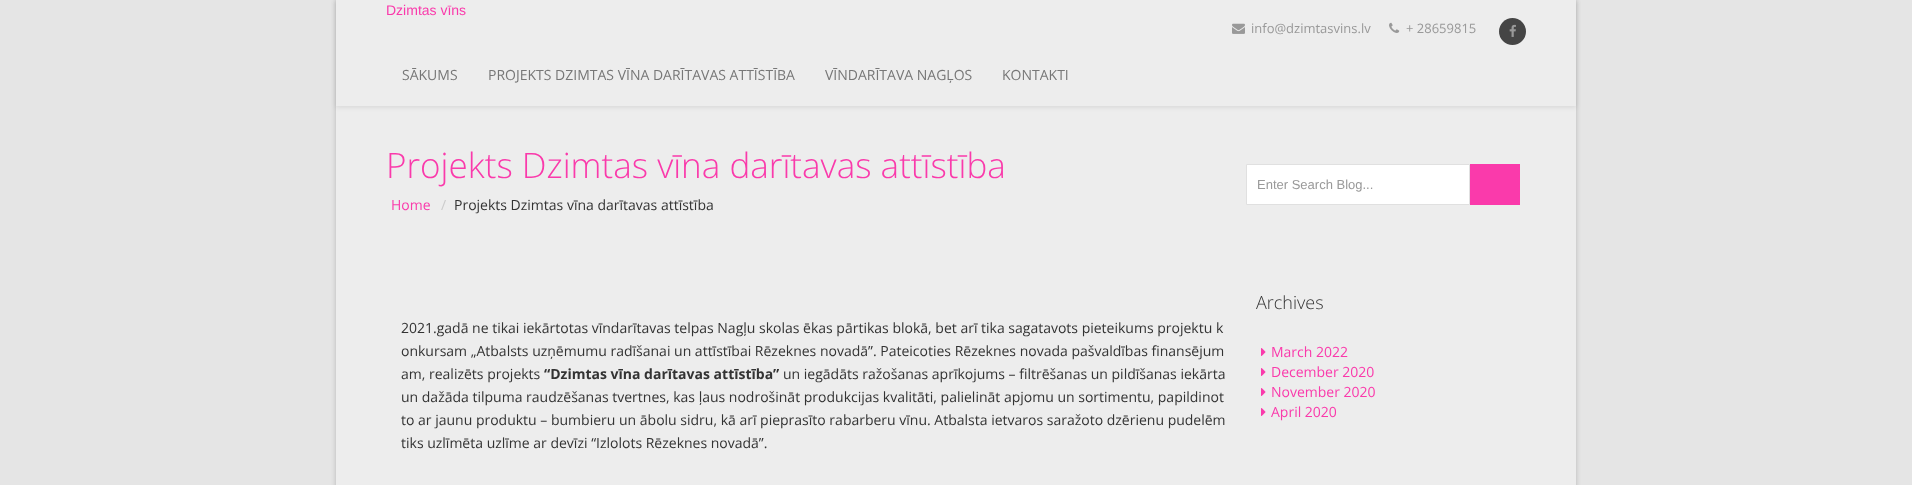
async function draw(canvas) {
  canvas.width = 1912
  canvas.height = 485
  const ctx = canvas.getContext('2d')
  ctx.miterLimit = 4
  ctx.fontKerning = 'normal'
  async function loadImage(src) {
    const img = new Image()
    img.src = src
    await img.decode()
    return img
  }

  ctx.fillStyle = '#e5e5e5'
  ctx.fillRect(0, 0, 1912, 485)
  ctx.fillStyle = '#00000033'
  ctx.filter = 'blur(2.5px)'
  ctx.beginPath()
  ctx.rect(336, 0, 1240, 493)
  ctx.fill()
  ctx.filter = 'none'
  ctx.fillStyle = '#ededed'
  ctx.fillRect(336, 0, 1240, 485)
  ctx.save()
  ctx.beginPath()
  ctx.moveTo(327, 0)
  ctx.lineTo(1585, 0)
  ctx.lineTo(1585, 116)
  ctx.lineTo(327, 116)
  ctx.closePath()
  ctx.moveTo(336, 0)
  ctx.lineTo(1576, 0)
  ctx.lineTo(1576, 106)
  ctx.lineTo(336, 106)
  ctx.closePath()
  ctx.clip('evenodd')
  ctx.fillStyle = '#0000001a'
  ctx.filter = 'blur(2.5px)'
  ctx.beginPath()
  ctx.rect(336, 1, 1240, 106)
  ctx.fill()
  ctx.filter = 'none'
  ctx.restore()
  ctx.font = '14px Liberation Sans'
  ctx.fillStyle = '#fa3aab'
  ctx.fillText('Dzimtas vīns', 386, 15)
  ctx.drawImage(await loadImage('image0.png'), 1232, 23, 13, 11)
  ctx.font = '13px Open Sans'
  ctx.fillStyle = '#999'
  ctx.fillText('info@dzimtasvins.lv', 1251, 33)
  ctx.drawImage(await loadImage('image1.png'), 1389, 22, 11, 11)
  ctx.fillText('+ 28659815', 1406, 33)
  ctx.fillStyle = '#454545'
  ctx.beginPath()
  ctx.arc(1512.5, 31.5, 13.5, 0, 2 * Math.PI)
  ctx.fill()
  ctx.drawImage(await loadImage('image2.png'), 1509, 24, 7, 13)
  ctx.font = '14px Open Sans'
  ctx.fillStyle = '#777'
  ctx.fillText('SĀKUMS', 402, 80)
  ctx.fillText('PROJEKTS DZIMTAS VĪNA DARĪTAVAS ATTĪSTĪBA', 488, 80)
  ctx.fillText('VĪNDARĪTAVA NAGĻOS', 825, 80)
  ctx.fillText('KONTAKTI', 1002, 80)
  ctx.font = '300 35px Open Sans'
  ctx.fillStyle = '#fa3aab'
  ctx.fillText('Projekts Dzimtas vīna darītavas attīstība', 386, 178)
  ctx.font = '14px Open Sans'
  ctx.fillText('Home', 391, 210)
  ctx.fillStyle = '#ccc'
  ctx.fillText('/', 441, 210)
  ctx.fillStyle = '#333'
  ctx.fillText('Projekts Dzimtas vīna darītavas attīstība', 454, 210)
  ctx.fillStyle = '#fff'
  ctx.beginPath()
  ctx.rect(1246.5, 164.5, 223, 40)
  ctx.fill()
  ctx.strokeStyle = '#e0e0e0'
  ctx.stroke()
  ctx.font = '13px Liberation Sans'
  ctx.fillStyle = '#999'
  ctx.fillText('Enter Search Blog...', 1257, 189)
  ctx.fillStyle = '#fa3aab'
  ctx.fillRect(1470, 164, 50, 41)
  ctx.font = '14px Open Sans'
  ctx.fillStyle = '#333'
  ctx.fillText('2021.gadā ne tikai iekārtotas vīndarītavas telpas Nagļu skolas ēkas pārtikas blokā, bet arī tika sagatavots pieteikums projektu k', 401, 333)
  ctx.fillText('onkursam „Atbalsts uzņēmumu radīšanai un attīstībai Rēzeknes novadā”. Pateicoties Rēzeknes novada pašvaldības finansējum', 401, 356)
  ctx.fillText('am, realizēts projekts', 401, 379)
  ctx.font = 'bold 14px Open Sans'
  ctx.fillText('“Dzimtas vīna darītavas attīstība”', 544, 379)
  ctx.font = '14px Open Sans'
  ctx.fillText('un iegādāts ražošanas aprīkojums – filtrēšanas un pildīšanas iekārta', 783, 379)
  ctx.fillText('un dažāda tilpuma raudzēšanas tvertnes, kas ļaus nodrošināt produkcijas kvalitāti, palielināt apjomu un sortimentu, papildinot', 401, 402)
  ctx.fillText('to ar jaunu produktu – bumbieru un ābolu sidru, kā arī pieprasīto rabarberu vīnu. Atbalsta ietvaros saražoto dzērienu pudelēm', 401, 425)
  ctx.fillText('tiks uzlīmēta uzlīme ar devīzi “Izlolots Rēzeknes novadā”.', 401, 448)
  ctx.font = '300 18px Open Sans'
  ctx.fillText('Archives', 1256, 309)
  ctx.drawImage(await loadImage('image3.png'), 1261, 348, 5, 8)
  ctx.font = '14px Open Sans'
  ctx.fillStyle = '#fa3aab'
  ctx.fillText('March 2022', 1271, 357)
  ctx.drawImage(await loadImage('image3.png'), 1261, 368, 5, 8)
  ctx.fillText('December 2020', 1271, 377)
  ctx.drawImage(await loadImage('image3.png'), 1261, 388, 5, 8)
  ctx.fillText('November 2020', 1271, 397)
  ctx.drawImage(await loadImage('image3.png'), 1261, 408, 5, 8)
  ctx.fillText('April 2020', 1271, 417)
}

draw(document.querySelector('canvas'))
